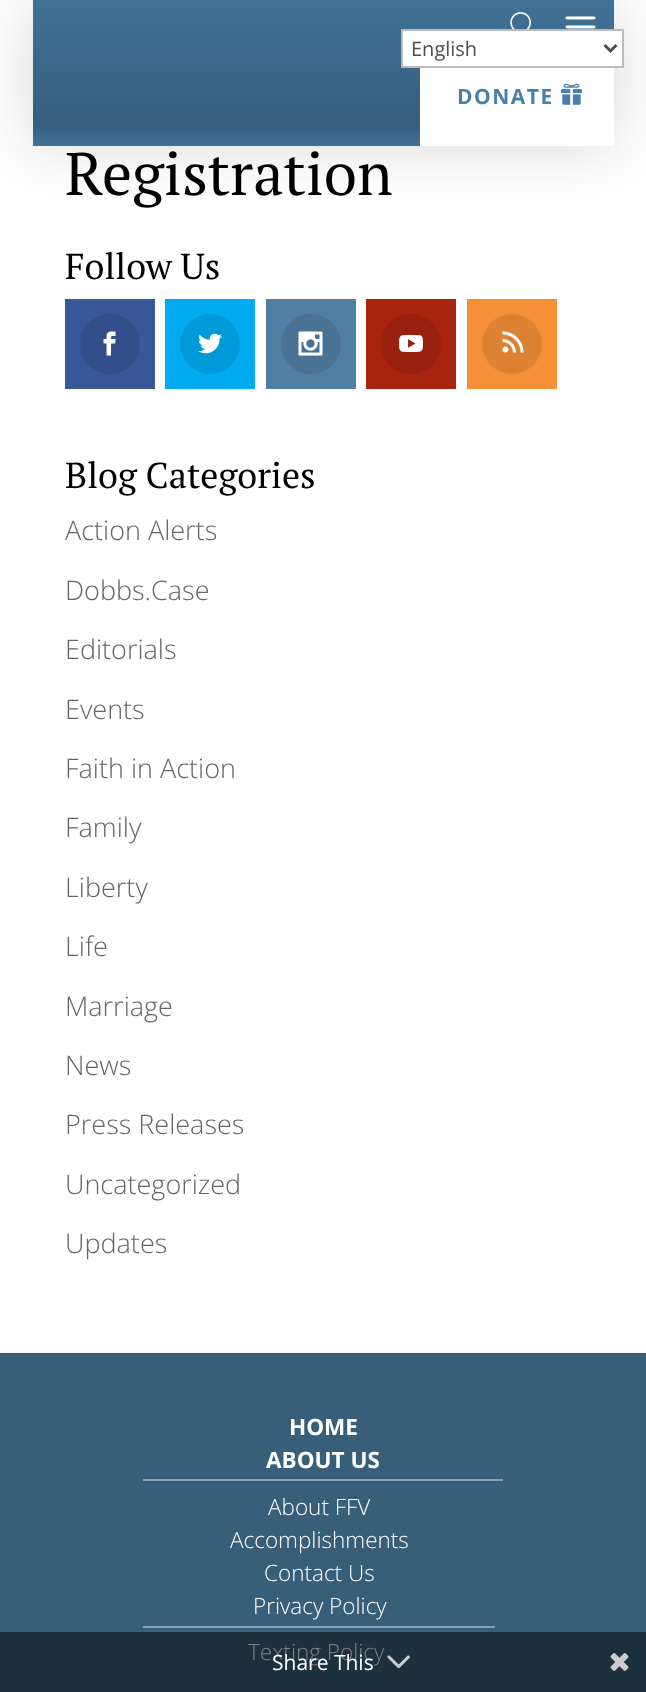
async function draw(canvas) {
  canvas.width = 646
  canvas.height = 1692
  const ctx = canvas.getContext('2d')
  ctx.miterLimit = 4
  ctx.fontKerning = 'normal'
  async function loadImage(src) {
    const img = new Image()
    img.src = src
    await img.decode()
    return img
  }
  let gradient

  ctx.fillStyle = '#fff'
  ctx.fillRect(0, 0, 646, 1692)
  ctx.fillStyle = '#00000026'
  ctx.filter = 'blur(31.5px)'
  ctx.beginPath()
  ctx.rect(33, 0, 581, 146)
  ctx.fill()
  ctx.filter = 'none'
  gradient = ctx.createLinearGradient(323, 0, 323, 146)
  gradient.addColorStop(0, '#417197')
  gradient.addColorStop(0.85, '#355e7f')
  gradient.addColorStop(1, '#417197')
  ctx.fillStyle = gradient
  ctx.fillRect(33, 0, 581, 146)
  ctx.fillStyle = '#fff'
  ctx.beginPath()
  ctx.rect(402, 30, 221, 37)
  ctx.fill()
  ctx.strokeStyle = '#bbb'
  ctx.lineWidth = 2
  ctx.stroke()
  ctx.beginPath()
  ctx.moveTo(604.5, 45)
  ctx.lineTo(610.5, 51)
  ctx.lineTo(616.5, 45)
  ctx.strokeStyle = '#4e4e4e'
  ctx.lineWidth = 3
  ctx.stroke()
  ctx.font = '20px Open Sans'
  ctx.fillStyle = '#4e4e4e'
  ctx.fillText('English', 411, 56)
  ctx.drawImage(await loadImage('image0.png'), 510, 12, 21, 17)
  ctx.drawImage(await loadImage('image1.png'), 565, 16, 31, 13)
  ctx.fillStyle = '#fff'
  ctx.fillRect(420, 68, 194, 78)
  ctx.letterSpacing = '1.5px'
  ctx.font = 'bold 21px Open Sans'
  ctx.fillStyle = '#4880a9'
  ctx.fillText('DONATE', 457, 104)
  ctx.drawImage(await loadImage('image2.png'), 561, 83, 21, 22)
  ctx.letterSpacing = '0px'
  ctx.font = '60px PT Serif'
  ctx.fillStyle = '#000'
  ctx.fillText('Registration', 65, 195)
  ctx.font = '36px PT Serif'
  ctx.fillText('Follow Us', 65, 279)
  ctx.fillStyle = '#3a579a'
  ctx.fillRect(65, 299, 90, 90)
  ctx.fillStyle = '#344e8b'
  ctx.beginPath()
  ctx.arc(110, 344, 30, 0, 2 * Math.PI)
  ctx.fill()
  ctx.drawImage(await loadImage('image3.png'), 103, 331, 13, 25)
  ctx.fillStyle = '#00abf0'
  ctx.fillRect(165, 299, 90, 90)
  ctx.fillStyle = '#009ad8'
  ctx.beginPath()
  ctx.arc(210, 344, 30, 0, 2 * Math.PI)
  ctx.fill()
  ctx.drawImage(await loadImage('image4.png'), 198, 333, 24, 21)
  ctx.fillStyle = '#517fa4'
  ctx.fillRect(266, 299, 90, 90)
  ctx.fillStyle = '#497294'
  ctx.beginPath()
  ctx.arc(311, 344, 30, 0, 2 * Math.PI)
  ctx.fill()
  ctx.drawImage(await loadImage('image5.png'), 298, 331, 25, 25)
  ctx.fillStyle = '#a8240f'
  ctx.fillRect(366, 299, 90, 90)
  ctx.fillStyle = '#97200e'
  ctx.beginPath()
  ctx.arc(411, 344, 30, 0, 2 * Math.PI)
  ctx.fill()
  ctx.drawImage(await loadImage('image6.png'), 399, 335, 24, 17)
  ctx.fillStyle = '#f59038'
  ctx.fillRect(467, 299, 90, 90)
  ctx.fillStyle = '#dd8232'
  ctx.beginPath()
  ctx.arc(512, 344, 30, 0, 2 * Math.PI)
  ctx.fill()
  ctx.drawImage(await loadImage('image7.png'), 502, 331, 22, 22)
  ctx.fillStyle = '#000'
  ctx.fillText('Blog Categories', 65, 488)
  ctx.font = '300 27px Open Sans'
  ctx.fillStyle = '#666'
  ctx.fillText('Action Alerts', 65, 540)
  ctx.fillText('Dobbs.Case', 65, 600)
  ctx.fillText('Editorials', 65, 659)
  ctx.fillText('Events', 65, 719)
  ctx.fillText('Faith in Action', 65, 778)
  ctx.fillText('Family', 65, 837)
  ctx.fillText('Liberty', 65, 897)
  ctx.fillText('Life', 65, 956)
  ctx.fillText('Marriage', 65, 1016)
  ctx.fillText('News', 65, 1075)
  ctx.fillText('Press Releases', 65, 1134)
  ctx.fillText('Uncategorized', 65, 1194)
  ctx.fillText('Updates', 65, 1253)
  ctx.fillStyle = '#375f79'
  ctx.fillRect(0, 1353, 646, 279)
  ctx.fillStyle = '#1c303d'
  ctx.fillRect(0, 1632, 646, 60)
  ctx.font = 'bold 22.5px Open Sans'
  ctx.fillStyle = '#fff'
  ctx.fillText('HOME', 289, 1435)
  ctx.fillText('ABOUT US', 266, 1468)
  ctx.fillStyle = '#879faf'
  ctx.fillRect(143, 1479, 360, 2)
  ctx.font = '300 22.5px Open Sans'
  ctx.fillStyle = '#fff'
  ctx.fillText('About FFV', 268, 1515)
  ctx.fillText('Accomplishments', 230, 1548)
  ctx.fillText('Contact Us', 264, 1581)
  ctx.fillText('Privacy Policy', 253, 1614)
  ctx.fillStyle = '#879faf'
  ctx.fillRect(143, 1626, 352, 2)
  ctx.fillStyle = '#808080'
  ctx.fillText('Texting Policy', 248, 1660)
  ctx.font = '21px Open Sans'
  ctx.fillStyle = '#fff'
  ctx.fillText('Share This', 272, 1670)
  ctx.drawImage(await loadImage('image8.png'), 387, 1655, 23, 14)
  ctx.drawImage(await loadImage('image9.png'), 610, 1653, 19, 18)
}

draw(document.querySelector('canvas'))
